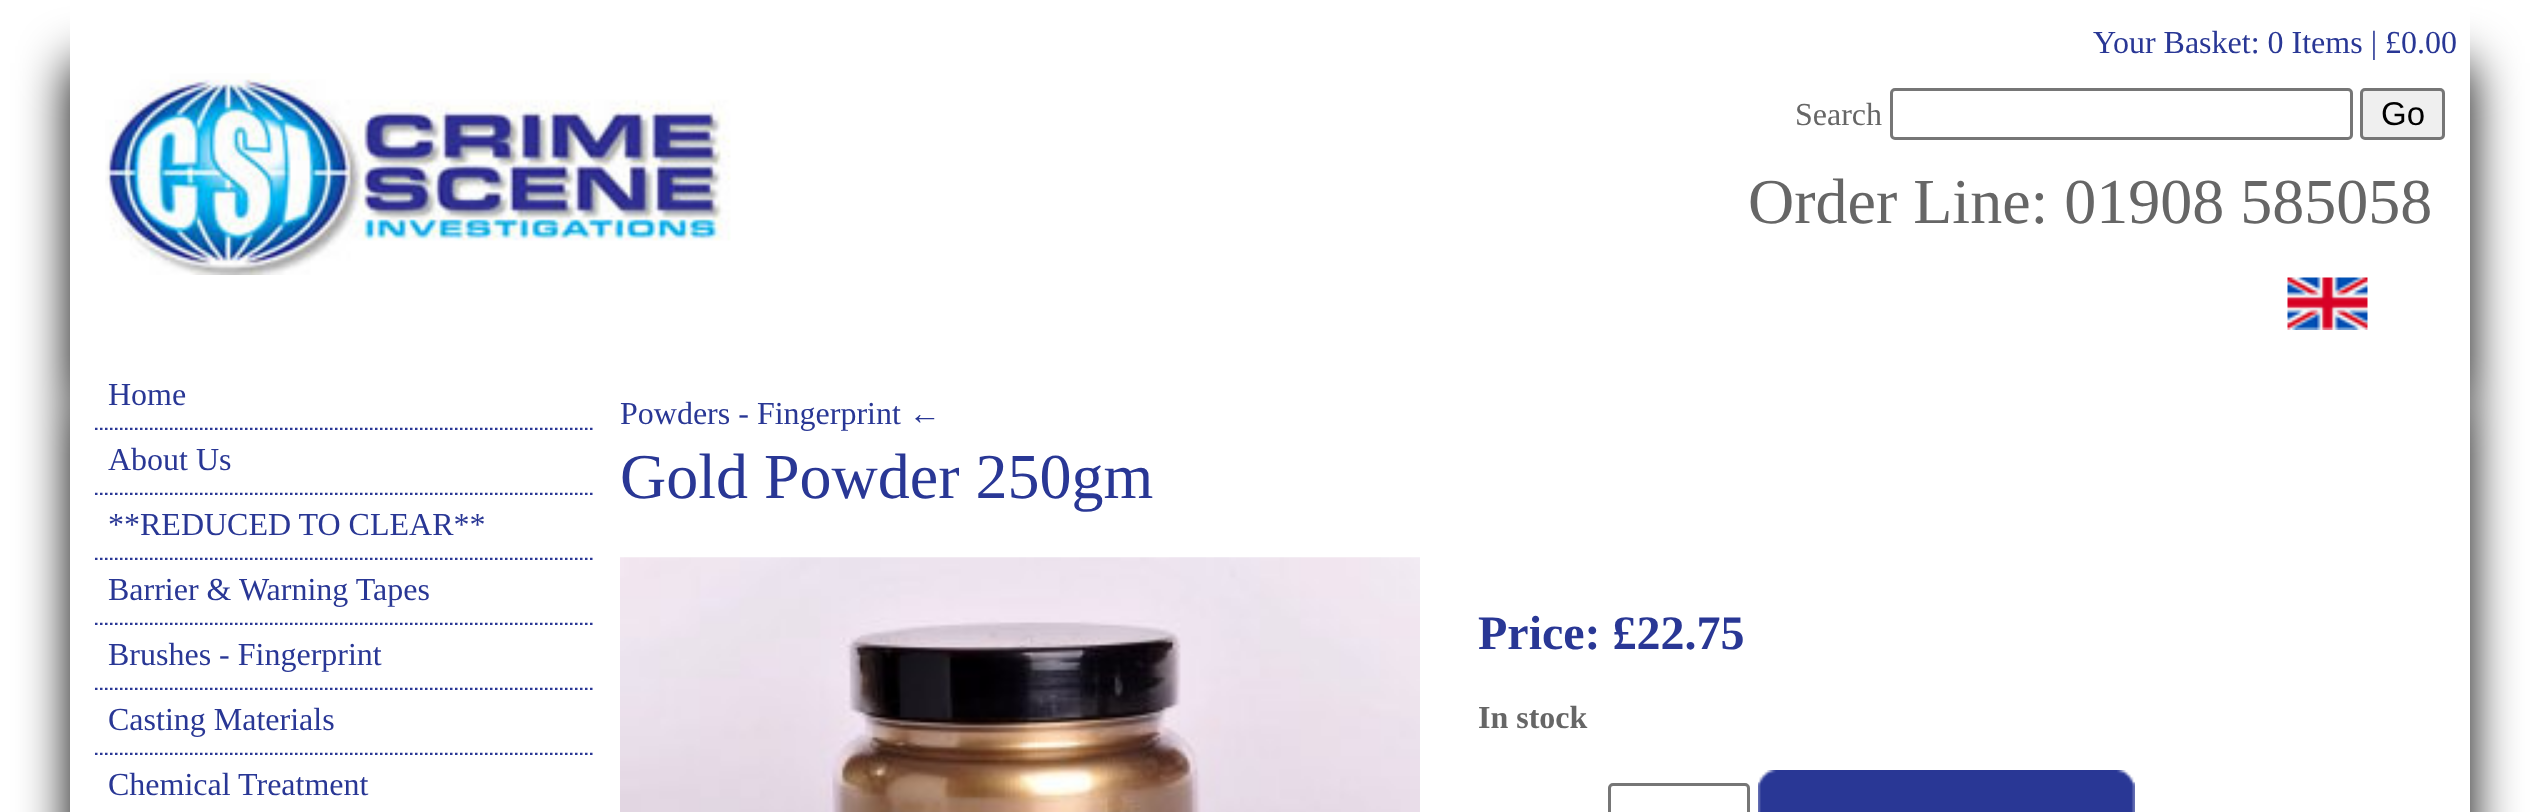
async function draw(canvas) {
  canvas.width = 2538
  canvas.height = 812
  const ctx = canvas.getContext('2d')
  ctx.miterLimit = 4
  ctx.fontKerning = 'normal'
  async function loadImage(src) {
    const img = new Image()
    img.src = src
    await img.decode()
    return img
  }

  ctx.fillStyle = '#fff'
  ctx.fillRect(0, 0, 2538, 812)
  ctx.save()
  ctx.beginPath()
  ctx.moveTo(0, 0)
  ctx.lineTo(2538, 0)
  ctx.lineTo(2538, 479)
  ctx.lineTo(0, 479)
  ctx.closePath()
  ctx.moveTo(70, 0)
  ctx.lineTo(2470, 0)
  ctx.lineTo(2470, 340)
  ctx.lineTo(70, 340)
  ctx.closePath()
  ctx.clip('evenodd')
  ctx.fillStyle = '#000'
  ctx.filter = 'blur(25px)'
  ctx.beginPath()
  ctx.rect(70, 63, 2400, 340)
  ctx.fill()
  ctx.filter = 'none'
  ctx.restore()
  ctx.drawImage(await loadImage('image0.png'), 105, 73, 626, 202)
  ctx.font = '32px Liberation Serif'
  ctx.fillStyle = '#293795'
  ctx.fillText('Your Basket: 0 Items | £0.00', 2093, 53)
  ctx.fillStyle = '#666'
  ctx.fillText('Search', 1795, 125)
  ctx.beginPath()
  ctx.roundRect(1891.5, 89.5, 460, 49, 3.5)
  ctx.strokeStyle = '#767676'
  ctx.lineWidth = 3
  ctx.stroke()
  ctx.fillStyle = '#efefef'
  ctx.beginPath()
  ctx.roundRect(2361.5, 89.5, 82, 49, 3.5)
  ctx.fill()
  ctx.stroke()
  ctx.font = '33px Liberation Sans'
  ctx.fillStyle = '#000'
  ctx.fillText('Go', 2381, 125)
  ctx.font = '64px Liberation Serif'
  ctx.fillStyle = '#666'
  ctx.fillText('Order Line: 01908 585058', 1748, 223)
  ctx.fillStyle = '#000'
  ctx.filter = 'blur(25px)'
  ctx.beginPath()
  ctx.rect(70, 403, 2400, 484)
  ctx.fill()
  ctx.filter = 'none'
  ctx.drawImage(await loadImage('image1.png'), 2287, 277, 81, 53)
  ctx.fillStyle = '#fff'
  ctx.fillRect(70, 340, 2400, 472)
  ctx.font = '32px Liberation Serif'
  ctx.fillStyle = '#293795'
  ctx.fillText('Home', 108, 405)
  ctx.beginPath()
  ctx.moveTo(95, 429)
  ctx.lineTo(595, 429)
  ctx.strokeStyle = '#293795'
  ctx.lineWidth = 2.5
  ctx.setLineDash([2.5, 2.5])
  ctx.stroke()
  ctx.fillStyle = '#fff'
  ctx.fillRect(95, 430, 498, 1)
  ctx.fillStyle = '#293795'
  ctx.fillText('About Us', 108, 470)
  ctx.beginPath()
  ctx.moveTo(95, 494)
  ctx.lineTo(595, 494)
  ctx.stroke()
  ctx.fillStyle = '#fff'
  ctx.fillRect(95, 495, 498, 1)
  ctx.fillStyle = '#293795'
  ctx.fillText('**REDUCED TO CLEAR**', 108, 535)
  ctx.beginPath()
  ctx.moveTo(95, 559)
  ctx.lineTo(595, 559)
  ctx.stroke()
  ctx.fillStyle = '#fff'
  ctx.fillRect(95, 560, 498, 1)
  ctx.fillStyle = '#293795'
  ctx.fillText('Barrier & Warning Tapes', 108, 600)
  ctx.beginPath()
  ctx.moveTo(95, 624)
  ctx.lineTo(595, 624)
  ctx.stroke()
  ctx.fillStyle = '#fff'
  ctx.fillRect(95, 625, 498, 1)
  ctx.fillStyle = '#293795'
  ctx.fillText('Brushes - Fingerprint', 108, 665)
  ctx.beginPath()
  ctx.moveTo(95, 689)
  ctx.lineTo(595, 689)
  ctx.stroke()
  ctx.fillStyle = '#fff'
  ctx.fillRect(95, 690, 498, 1)
  ctx.fillStyle = '#293795'
  ctx.fillText('Casting Materials', 108, 730)
  ctx.beginPath()
  ctx.moveTo(95, 754)
  ctx.lineTo(595, 754)
  ctx.stroke()
  ctx.fillStyle = '#fff'
  ctx.fillRect(95, 755, 498, 1)
  ctx.fillStyle = '#293795'
  ctx.fillText('Chemical Treatment', 108, 795)
  ctx.fillText('Powders - Fingerprint ←', 620, 424)
  ctx.font = '64px Liberation Serif'
  ctx.fillText('Gold Powder 250gm', 620, 498)
  ctx.drawImage(await loadImage('image2.png'), 620, 557, 800, 255)
  ctx.drawImage(await loadImage('image3.png'), 620, 557, 800, 1)
  ctx.font = 'bold 48px Liberation Serif'
  ctx.fillText('Price: £22.75', 1478, 649)
  ctx.font = 'bold 32px Liberation Serif'
  ctx.fillStyle = '#666'
  ctx.fillText('In stock', 1478, 728)
  ctx.beginPath()
  ctx.roundRect(1609.5, 784.5, 139, 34, 3.5)
  ctx.strokeStyle = '#767676'
  ctx.lineWidth = 3
  ctx.setLineDash([])
  ctx.stroke()
  ctx.fillStyle = '#293795'
  ctx.fillRect(1758, 770, 377, 42)
  ctx.drawImage(await loadImage('image4.png'), 1758, 770, 377, 42)
}

draw(document.querySelector('canvas'))
